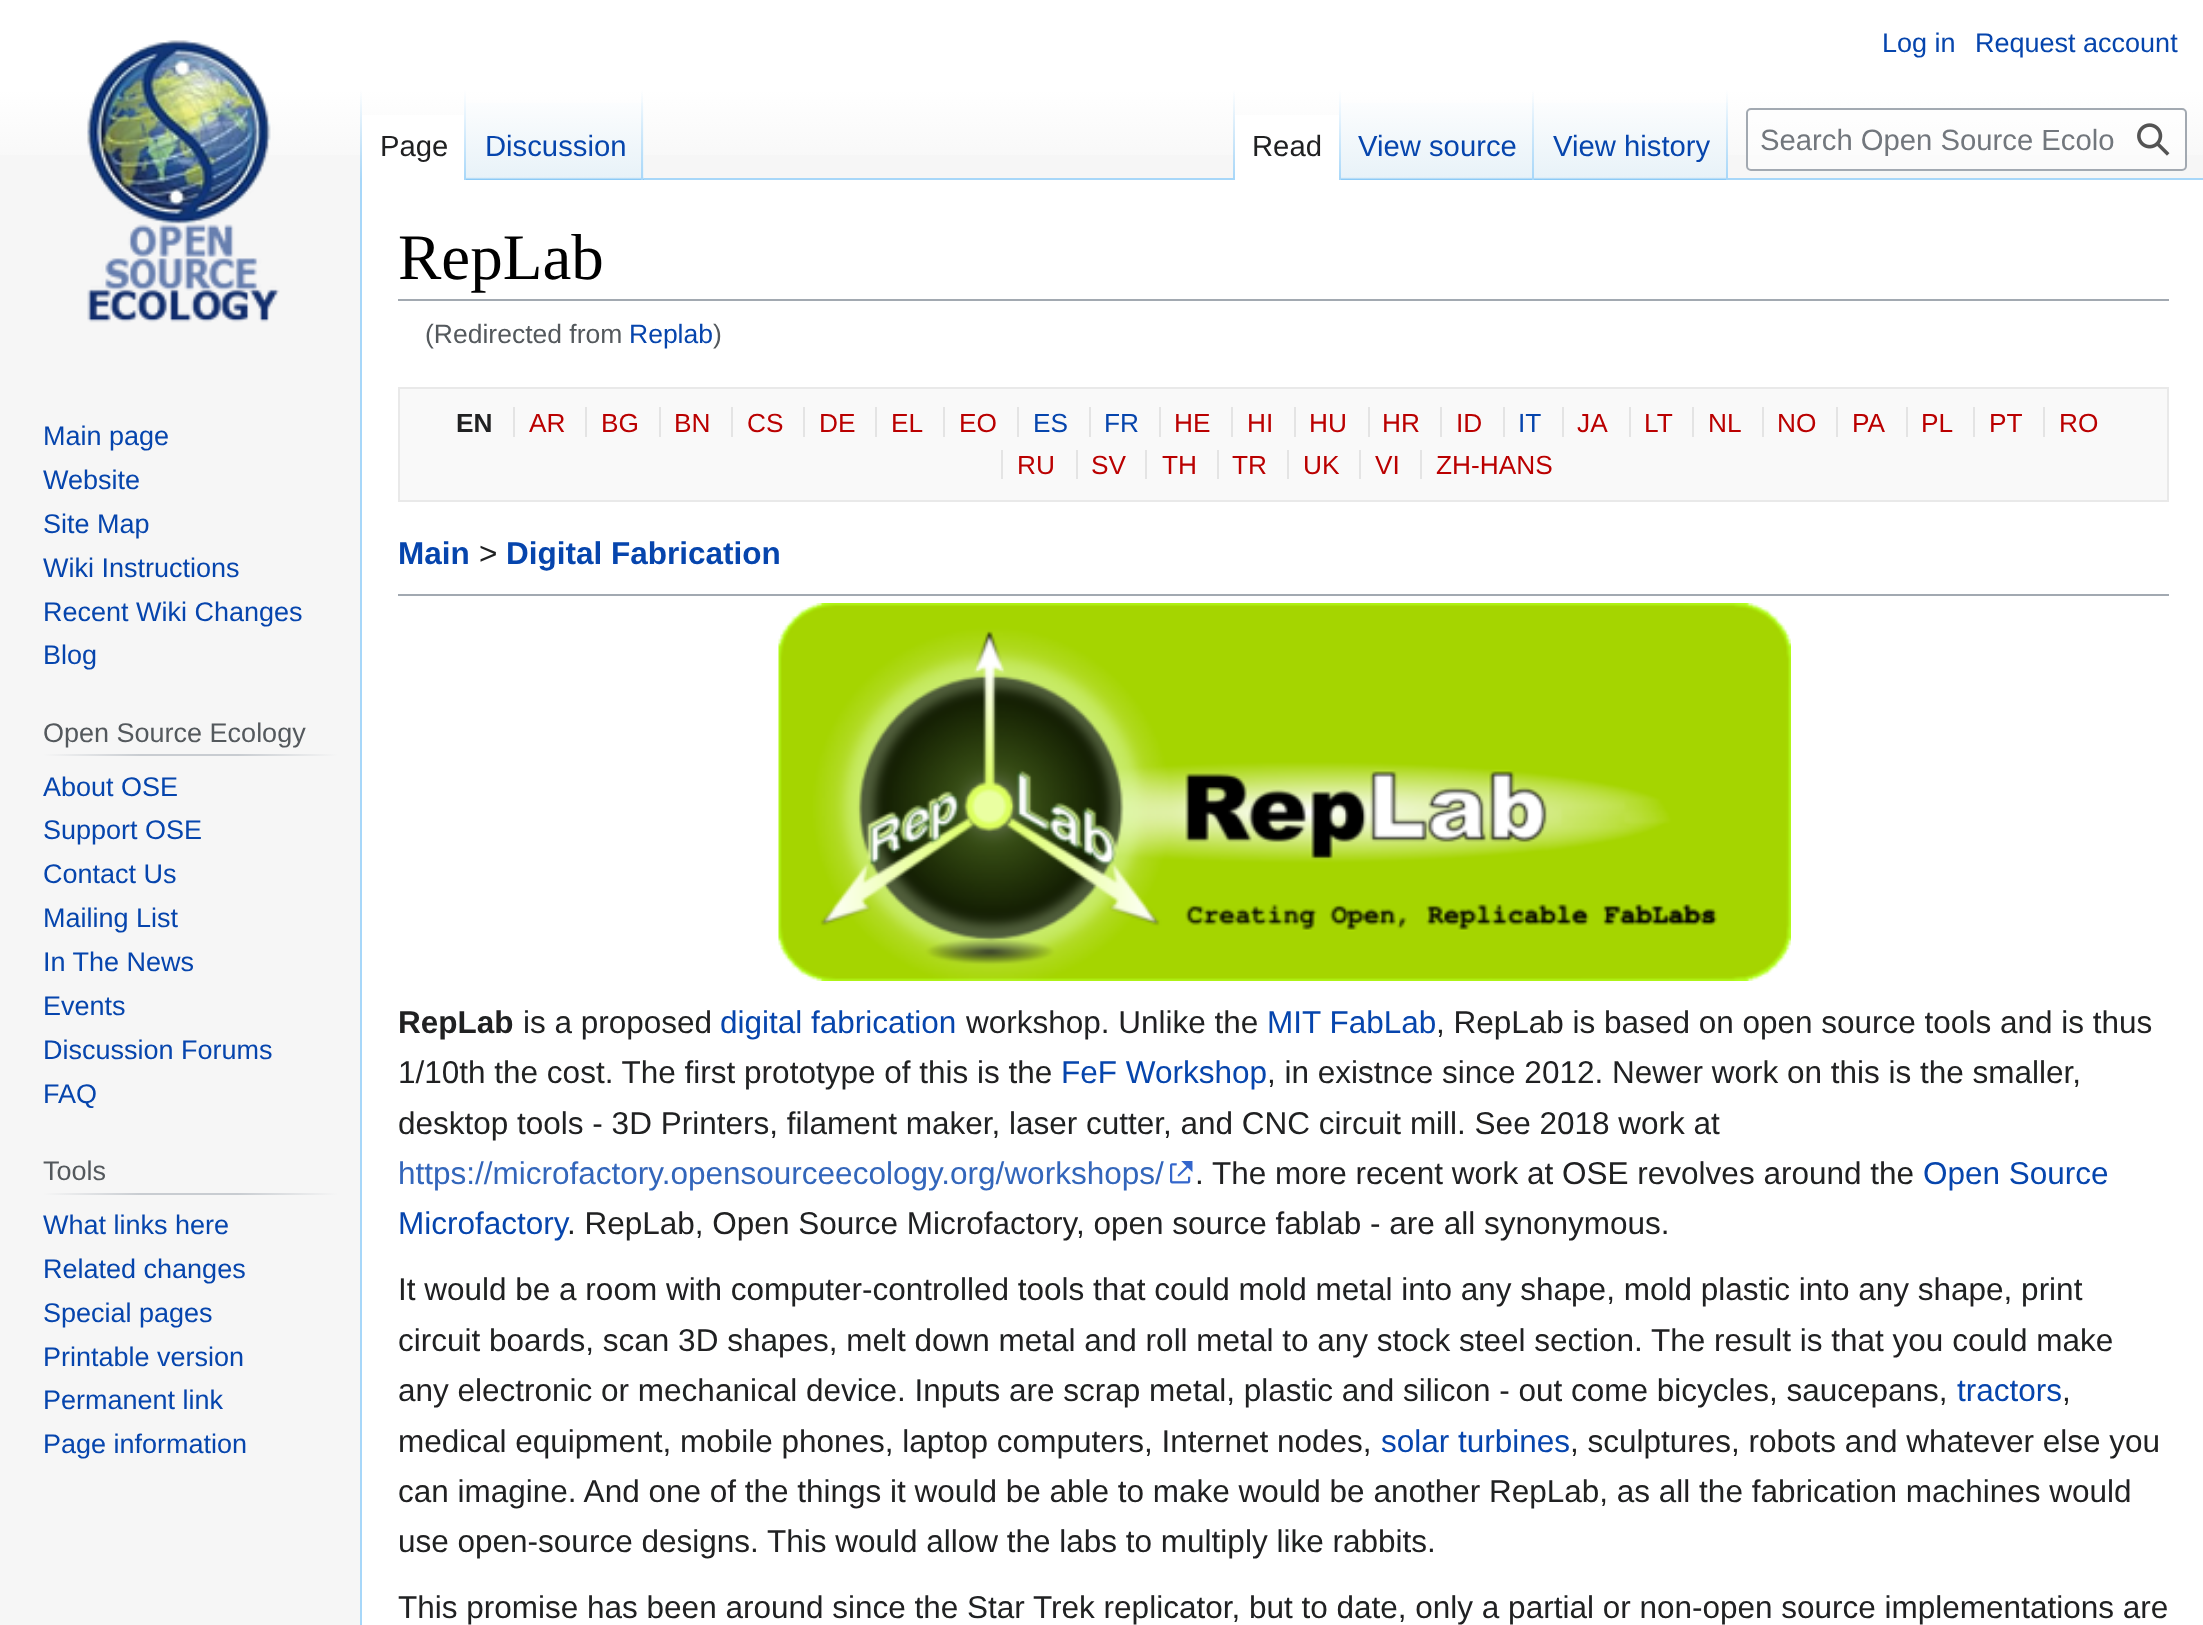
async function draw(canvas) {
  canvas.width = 2203
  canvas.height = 1625
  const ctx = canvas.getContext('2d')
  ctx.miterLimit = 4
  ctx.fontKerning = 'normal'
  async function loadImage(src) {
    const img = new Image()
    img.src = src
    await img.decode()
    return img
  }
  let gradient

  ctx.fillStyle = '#f6f6f6'
  ctx.fillRect(0, 0, 2203, 1625)
  gradient = ctx.createLinearGradient(1103, 0, 1103, 180)
  gradient.addColorStop(0.5, '#fff')
  gradient.addColorStop(1, '#f6f6f6')
  ctx.fillStyle = gradient
  ctx.fillRect(0, 0, 2203, 155)
  ctx.font = '27px Liberation Sans'
  ctx.fillStyle = '#0645ad'
  ctx.fillText('Log in', 1882, 52)
  ctx.fillText('Request account', 1975, 52)
  ctx.fillStyle = '#a7d7f9'
  ctx.fillRect(360, 178, 2, 1447)
  gradient = ctx.createLinearGradient(361, 90, 361, 180)
  gradient.addColorStop(0, '#a7d7f900')
  gradient.addColorStop(1, '#a7d7f9')
  ctx.fillStyle = gradient
  ctx.fillRect(360, 90, 2, 90)
  ctx.fillStyle = '#fff'
  ctx.fillRect(362, 115, 102, 65)
  gradient = ctx.createLinearGradient(465, 90, 465, 180)
  gradient.addColorStop(0, '#fff')
  gradient.addColorStop(1, '#a7d7f9')
  ctx.fillStyle = gradient
  ctx.fillRect(464, 90, 2, 90)
  ctx.font = '29.25px Liberation Sans'
  ctx.fillStyle = '#202122'
  ctx.fillText('Page', 380, 156)
  gradient = ctx.createLinearGradient(555, 180, 555, 90)
  gradient.addColorStop(0, '#77c1f6')
  gradient.addColorStop(0.03, '#e8f2f8')
  gradient.addColorStop(1, '#fff')
  ctx.fillStyle = gradient
  ctx.fillRect(466, 103, 178, 77)
  gradient = ctx.createLinearGradient(642, 90, 642, 180)
  gradient.addColorStop(0, '#a7d7f900')
  gradient.addColorStop(1, '#a7d7f9')
  ctx.fillStyle = gradient
  ctx.fillRect(641, 90, 2, 90)
  ctx.fillStyle = '#0645ad'
  ctx.fillText('Discussion', 485, 156)
  ctx.fillStyle = '#a7d7f9'
  ctx.fillRect(644, 178, 1559, 2)
  gradient = ctx.createLinearGradient(1234, 90, 1234, 180)
  gradient.addColorStop(0, '#a7d7f900')
  gradient.addColorStop(1, '#a7d7f9')
  ctx.fillStyle = gradient
  ctx.fillRect(1233, 90, 2, 90)
  ctx.fillStyle = '#fff'
  ctx.fillRect(1235, 115, 104, 65)
  gradient = ctx.createLinearGradient(1340, 90, 1340, 180)
  gradient.addColorStop(0, '#fff')
  gradient.addColorStop(1, '#a7d7f9')
  ctx.fillStyle = gradient
  ctx.fillRect(1339, 90, 2, 90)
  ctx.fillStyle = '#202122'
  ctx.fillText('Read', 1252, 156)
  gradient = ctx.createLinearGradient(1438, 180, 1438, 90)
  gradient.addColorStop(0, '#77c1f6')
  gradient.addColorStop(0.03, '#e8f2f8')
  gradient.addColorStop(1, '#fff')
  ctx.fillStyle = gradient
  ctx.fillRect(1341, 103, 194, 77)
  gradient = ctx.createLinearGradient(1533, 90, 1533, 180)
  gradient.addColorStop(0, '#a7d7f900')
  gradient.addColorStop(1, '#a7d7f9')
  ctx.fillStyle = gradient
  ctx.fillRect(1532, 90, 2, 90)
  ctx.fillStyle = '#0645ad'
  ctx.fillText('View source', 1358, 156)
  gradient = ctx.createLinearGradient(1631, 180, 1631, 90)
  gradient.addColorStop(0, '#77c1f6')
  gradient.addColorStop(0.03, '#e8f2f8')
  gradient.addColorStop(1, '#fff')
  ctx.fillStyle = gradient
  ctx.fillRect(1535, 103, 193, 77)
  gradient = ctx.createLinearGradient(1727, 90, 1727, 180)
  gradient.addColorStop(0, '#a7d7f900')
  gradient.addColorStop(1, '#a7d7f9')
  ctx.fillStyle = gradient
  ctx.fillRect(1726, 90, 2, 90)
  ctx.fillStyle = '#0645ad'
  ctx.fillText('View history', 1553, 156)
  ctx.fillStyle = '#ffffff80'
  ctx.beginPath()
  ctx.roundRect(1747, 109, 439, 61, 4)
  ctx.fill()
  ctx.strokeStyle = '#a2a9b1'
  ctx.lineWidth = 2
  ctx.stroke()
  ctx.fillStyle = '#72777d'
  ctx.fillText('Search Open Source Ecolo', 1760, 150)
  ctx.drawImage(await loadImage('image0.png'), 2137, 123, 33, 33)
  ctx.drawImage(await loadImage('image1.png'), 87, 40, 193, 283)
  ctx.font = '27px Liberation Sans'
  ctx.fillStyle = '#0645ad'
  ctx.fillText('Main page', 43, 445)
  ctx.fillText('Website', 43, 489)
  ctx.fillText('Site Map', 43, 533)
  ctx.fillText('Wiki Instructions', 43, 577)
  ctx.fillText('Recent Wiki Changes', 43, 621)
  ctx.fillText('Blog', 43, 664)
  gradient = ctx.createLinearGradient(43, 755, 338, 755)
  gradient.addColorStop(0, '#f6f6f6')
  gradient.addColorStop(0.33, '#c8ccd1')
  gradient.addColorStop(0.66, '#c8ccd1')
  gradient.addColorStop(1, '#f6f6f6')
  ctx.fillStyle = gradient
  ctx.fillRect(43, 754, 295, 2)
  ctx.fillStyle = '#54595d'
  ctx.fillText('Open Source Ecology', 43, 742)
  ctx.fillStyle = '#0645ad'
  ctx.fillText('About OSE', 43, 796)
  ctx.fillText('Support OSE', 43, 839)
  ctx.fillText('Contact Us', 43, 883)
  ctx.fillText('Mailing List', 43, 927)
  ctx.fillText('In The News', 43, 971)
  ctx.fillText('Events', 43, 1015)
  ctx.fillText('Discussion Forums', 43, 1059)
  ctx.fillText('FAQ', 43, 1103)
  gradient = ctx.createLinearGradient(43, 1194, 338, 1194)
  gradient.addColorStop(0, '#f6f6f6')
  gradient.addColorStop(0.33, '#c8ccd1')
  gradient.addColorStop(0.66, '#c8ccd1')
  gradient.addColorStop(1, '#f6f6f6')
  ctx.fillStyle = gradient
  ctx.fillRect(43, 1193, 295, 2)
  ctx.fillStyle = '#54595d'
  ctx.fillText('Tools', 43, 1180)
  ctx.fillStyle = '#0645ad'
  ctx.fillText('What links here', 43, 1234)
  ctx.fillText('Related changes', 43, 1278)
  ctx.fillText('Special pages', 43, 1322)
  ctx.fillText('Printable version', 43, 1366)
  ctx.fillText('Permanent link', 43, 1409)
  ctx.fillText('Page information', 43, 1453)
  ctx.fillStyle = '#fff'
  ctx.fillRect(362, 180, 1841, 1445)
  ctx.fillStyle = '#a2a9b1'
  ctx.fillRect(398, 299, 1771, 2)
  ctx.font = '65px Liberation Serif'
  ctx.fillStyle = '#000'
  ctx.fillText('RepLab', 398, 279)
  ctx.font = '26.5px Liberation Sans'
  ctx.fillStyle = '#54595d'
  ctx.fillText('(Redirected from', 425, 343)
  ctx.fillStyle = '#0645ad'
  ctx.fillText('Replab', 629, 343)
  ctx.fillStyle = '#54595d'
  ctx.fillText(')', 713, 343)
  ctx.fillStyle = '#f9f9f9'
  ctx.beginPath()
  ctx.rect(399, 388, 1769, 113)
  ctx.fill()
  ctx.strokeStyle = '#e9e9e9'
  ctx.stroke()
  ctx.font = 'bold 26.25px Liberation Sans'
  ctx.fillStyle = '#202122'
  ctx.fillText('EN', 456, 432)
  ctx.font = '26.25px Liberation Sans'
  ctx.fillStyle = '#ba0000'
  ctx.fillText('AR', 529, 432)
  ctx.fillStyle = '#e4e4e4'
  ctx.fillRect(513, 407, 2, 30)
  ctx.fillStyle = '#ba0000'
  ctx.fillText('BG', 601, 432)
  ctx.fillStyle = '#e4e4e4'
  ctx.fillRect(585, 407, 2, 30)
  ctx.fillStyle = '#ba0000'
  ctx.fillText('BN', 674, 432)
  ctx.fillStyle = '#e4e4e4'
  ctx.fillRect(659, 407, 2, 30)
  ctx.fillStyle = '#ba0000'
  ctx.fillText('CS', 747, 432)
  ctx.fillStyle = '#e4e4e4'
  ctx.fillRect(731, 407, 2, 30)
  ctx.fillStyle = '#ba0000'
  ctx.fillText('DE', 819, 432)
  ctx.fillStyle = '#e4e4e4'
  ctx.fillRect(803, 407, 2, 30)
  ctx.fillStyle = '#ba0000'
  ctx.fillText('EL', 891, 432)
  ctx.fillStyle = '#e4e4e4'
  ctx.fillRect(875, 407, 2, 30)
  ctx.fillStyle = '#ba0000'
  ctx.fillText('EO', 959, 432)
  ctx.fillStyle = '#e4e4e4'
  ctx.fillRect(943, 407, 2, 30)
  ctx.fillStyle = '#0645ad'
  ctx.fillText('ES', 1033, 432)
  ctx.fillStyle = '#e4e4e4'
  ctx.fillRect(1017, 407, 2, 30)
  ctx.fillStyle = '#0645ad'
  ctx.fillText('FR', 1104, 432)
  ctx.fillStyle = '#e4e4e4'
  ctx.fillRect(1089, 407, 2, 30)
  ctx.fillStyle = '#ba0000'
  ctx.fillText('HE', 1174, 432)
  ctx.fillStyle = '#e4e4e4'
  ctx.fillRect(1159, 407, 2, 30)
  ctx.fillStyle = '#ba0000'
  ctx.fillText('HI', 1247, 432)
  ctx.fillStyle = '#e4e4e4'
  ctx.fillRect(1231, 407, 2, 30)
  ctx.fillStyle = '#ba0000'
  ctx.fillText('HU', 1309, 432)
  ctx.fillStyle = '#e4e4e4'
  ctx.fillRect(1294, 407, 2, 30)
  ctx.fillStyle = '#ba0000'
  ctx.fillText('HR', 1382, 432)
  ctx.fillStyle = '#e4e4e4'
  ctx.fillRect(1368, 407, 2, 30)
  ctx.fillStyle = '#ba0000'
  ctx.fillText('ID', 1456, 432)
  ctx.fillStyle = '#e4e4e4'
  ctx.fillRect(1440, 407, 2, 30)
  ctx.fillStyle = '#0645ad'
  ctx.fillText('IT', 1518, 432)
  ctx.fillStyle = '#e4e4e4'
  ctx.fillRect(1503, 407, 2, 30)
  ctx.fillStyle = '#ba0000'
  ctx.fillText('JA', 1577, 432)
  ctx.fillStyle = '#e4e4e4'
  ctx.fillRect(1562, 407, 2, 30)
  ctx.fillStyle = '#ba0000'
  ctx.fillText('LT', 1644, 432)
  ctx.fillStyle = '#e4e4e4'
  ctx.fillRect(1629, 407, 2, 30)
  ctx.fillStyle = '#ba0000'
  ctx.fillText('NL', 1708, 432)
  ctx.fillStyle = '#e4e4e4'
  ctx.fillRect(1692, 407, 2, 30)
  ctx.fillStyle = '#ba0000'
  ctx.fillText('NO', 1777, 432)
  ctx.fillStyle = '#e4e4e4'
  ctx.fillRect(1762, 407, 2, 30)
  ctx.fillStyle = '#ba0000'
  ctx.fillText('PA', 1852, 432)
  ctx.fillStyle = '#e4e4e4'
  ctx.fillRect(1836, 407, 2, 30)
  ctx.fillStyle = '#ba0000'
  ctx.fillText('PL', 1921, 432)
  ctx.fillStyle = '#e4e4e4'
  ctx.fillRect(1906, 407, 2, 30)
  ctx.fillStyle = '#ba0000'
  ctx.fillText('PT', 1989, 432)
  ctx.fillStyle = '#e4e4e4'
  ctx.fillRect(1973, 407, 2, 30)
  ctx.fillStyle = '#ba0000'
  ctx.fillText('RO', 2059, 432)
  ctx.fillStyle = '#e4e4e4'
  ctx.fillRect(2043, 407, 2, 30)
  ctx.fillStyle = '#ba0000'
  ctx.fillText('RU', 1017, 474)
  ctx.fillStyle = '#e4e4e4'
  ctx.fillRect(1001, 450, 2, 29)
  ctx.fillStyle = '#ba0000'
  ctx.fillText('SV', 1091, 474)
  ctx.fillStyle = '#e4e4e4'
  ctx.fillRect(1076, 450, 2, 29)
  ctx.fillStyle = '#ba0000'
  ctx.fillText('TH', 1162, 474)
  ctx.fillStyle = '#e4e4e4'
  ctx.fillRect(1145, 450, 2, 29)
  ctx.fillStyle = '#ba0000'
  ctx.fillText('TR', 1232, 474)
  ctx.fillStyle = '#e4e4e4'
  ctx.fillRect(1217, 450, 2, 29)
  ctx.fillStyle = '#ba0000'
  ctx.fillText('UK', 1303, 474)
  ctx.fillStyle = '#e4e4e4'
  ctx.fillRect(1287, 450, 2, 29)
  ctx.fillStyle = '#ba0000'
  ctx.fillText('VI', 1375, 474)
  ctx.fillStyle = '#e4e4e4'
  ctx.fillRect(1359, 450, 2, 29)
  ctx.fillStyle = '#ba0000'
  ctx.fillText('ZH-HANS', 1436, 474)
  ctx.fillStyle = '#e4e4e4'
  ctx.fillRect(1420, 450, 2, 29)
  ctx.font = 'bold 31.5px Liberation Sans'
  ctx.fillStyle = '#0645ad'
  ctx.fillText('Main', 398, 564)
  ctx.font = '31.5px Liberation Sans'
  ctx.fillStyle = '#202122'
  ctx.fillText('>', 479, 564)
  ctx.font = 'bold 31.5px Liberation Sans'
  ctx.fillStyle = '#0645ad'
  ctx.fillText('Digital Fabrication', 506, 564)
  ctx.fillStyle = '#a2a9b1'
  ctx.fillRect(398, 594, 1771, 2)
  ctx.drawImage(await loadImage('image2.png'), 778, 603, 1013, 378)
  ctx.fillStyle = '#202122'
  ctx.fillText('RepLab', 398, 1033)
  ctx.font = '31.5px Liberation Sans'
  ctx.fillText('is a proposed', 523, 1033)
  ctx.fillStyle = '#0645ad'
  ctx.fillText('digital fabrication', 720, 1033)
  ctx.fillStyle = '#202122'
  ctx.fillText('workshop. Unlike the', 966, 1033)
  ctx.fillStyle = '#0645ad'
  ctx.fillText('MIT FabLab', 1267, 1033)
  ctx.fillStyle = '#202122'
  ctx.fillText(', RepLab is based on open source tools and is thus', 1436, 1033)
  ctx.fillText('1/10th the cost. The first prototype of this is the', 398, 1083)
  ctx.fillStyle = '#0645ad'
  ctx.fillText('FeF Workshop', 1061, 1083)
  ctx.fillStyle = '#202122'
  ctx.fillText(', in existnce since 2012. Newer work on this is the smaller,', 1267, 1083)
  ctx.fillText('desktop tools - 3D Printers, filament maker, laser cutter, and CNC circuit mill. See 2018 work at', 398, 1134)
  ctx.fillStyle = '#36b'
  ctx.fillText('https://microfactory.opensourceecology.org/workshops/', 398, 1184)
  ctx.drawImage(await loadImage('image3.png'), 1170, 1161, 23, 23)
  ctx.fillStyle = '#202122'
  ctx.fillText('. The more recent work at OSE revolves around the', 1195, 1184)
  ctx.fillStyle = '#0645ad'
  ctx.fillText('Open Source', 1923, 1184)
  ctx.fillText('Microfactory', 398, 1234)
  ctx.fillStyle = '#202122'
  ctx.fillText('. RepLab, Open Source Microfactory, open source fablab - are all synonymous.', 567, 1234)
  ctx.fillText('It would be a room with computer-controlled tools that could mold metal into any shape, mold plastic into any shape, print', 398, 1300)
  ctx.fillText('circuit boards, scan 3D shapes, melt down metal and roll metal to any stock steel section.', 398, 1351)
  ctx.fillText('The result is that you could make', 1651, 1351)
  ctx.fillText('any electronic or mechanical device. Inputs are scrap metal, plastic and silicon - out come bicycles, saucepans,', 398, 1401)
  ctx.fillStyle = '#0645ad'
  ctx.fillText('tractors', 1957, 1401)
  ctx.fillStyle = '#202122'
  ctx.fillText(',', 2062, 1401)
  ctx.fillText('medical equipment, mobile phones, laptop computers, Internet nodes,', 398, 1452)
  ctx.fillStyle = '#0645ad'
  ctx.fillText('solar turbines', 1381, 1452)
  ctx.fillStyle = '#202122'
  ctx.fillText(', sculptures, robots and whatever else you', 1570, 1452)
  ctx.fillText('can imagine. And one of the things it would be able to make would be another RepLab, as all the fabrication machines would', 398, 1502)
  ctx.fillText('use open-source designs. This would allow the labs to multiply like rabbits.', 398, 1552)
  ctx.fillText('This promise has been around since the Star Trek replicator, but to date, only a partial or non-open source implementations are', 398, 1618)
}

draw(document.querySelector('canvas'))
